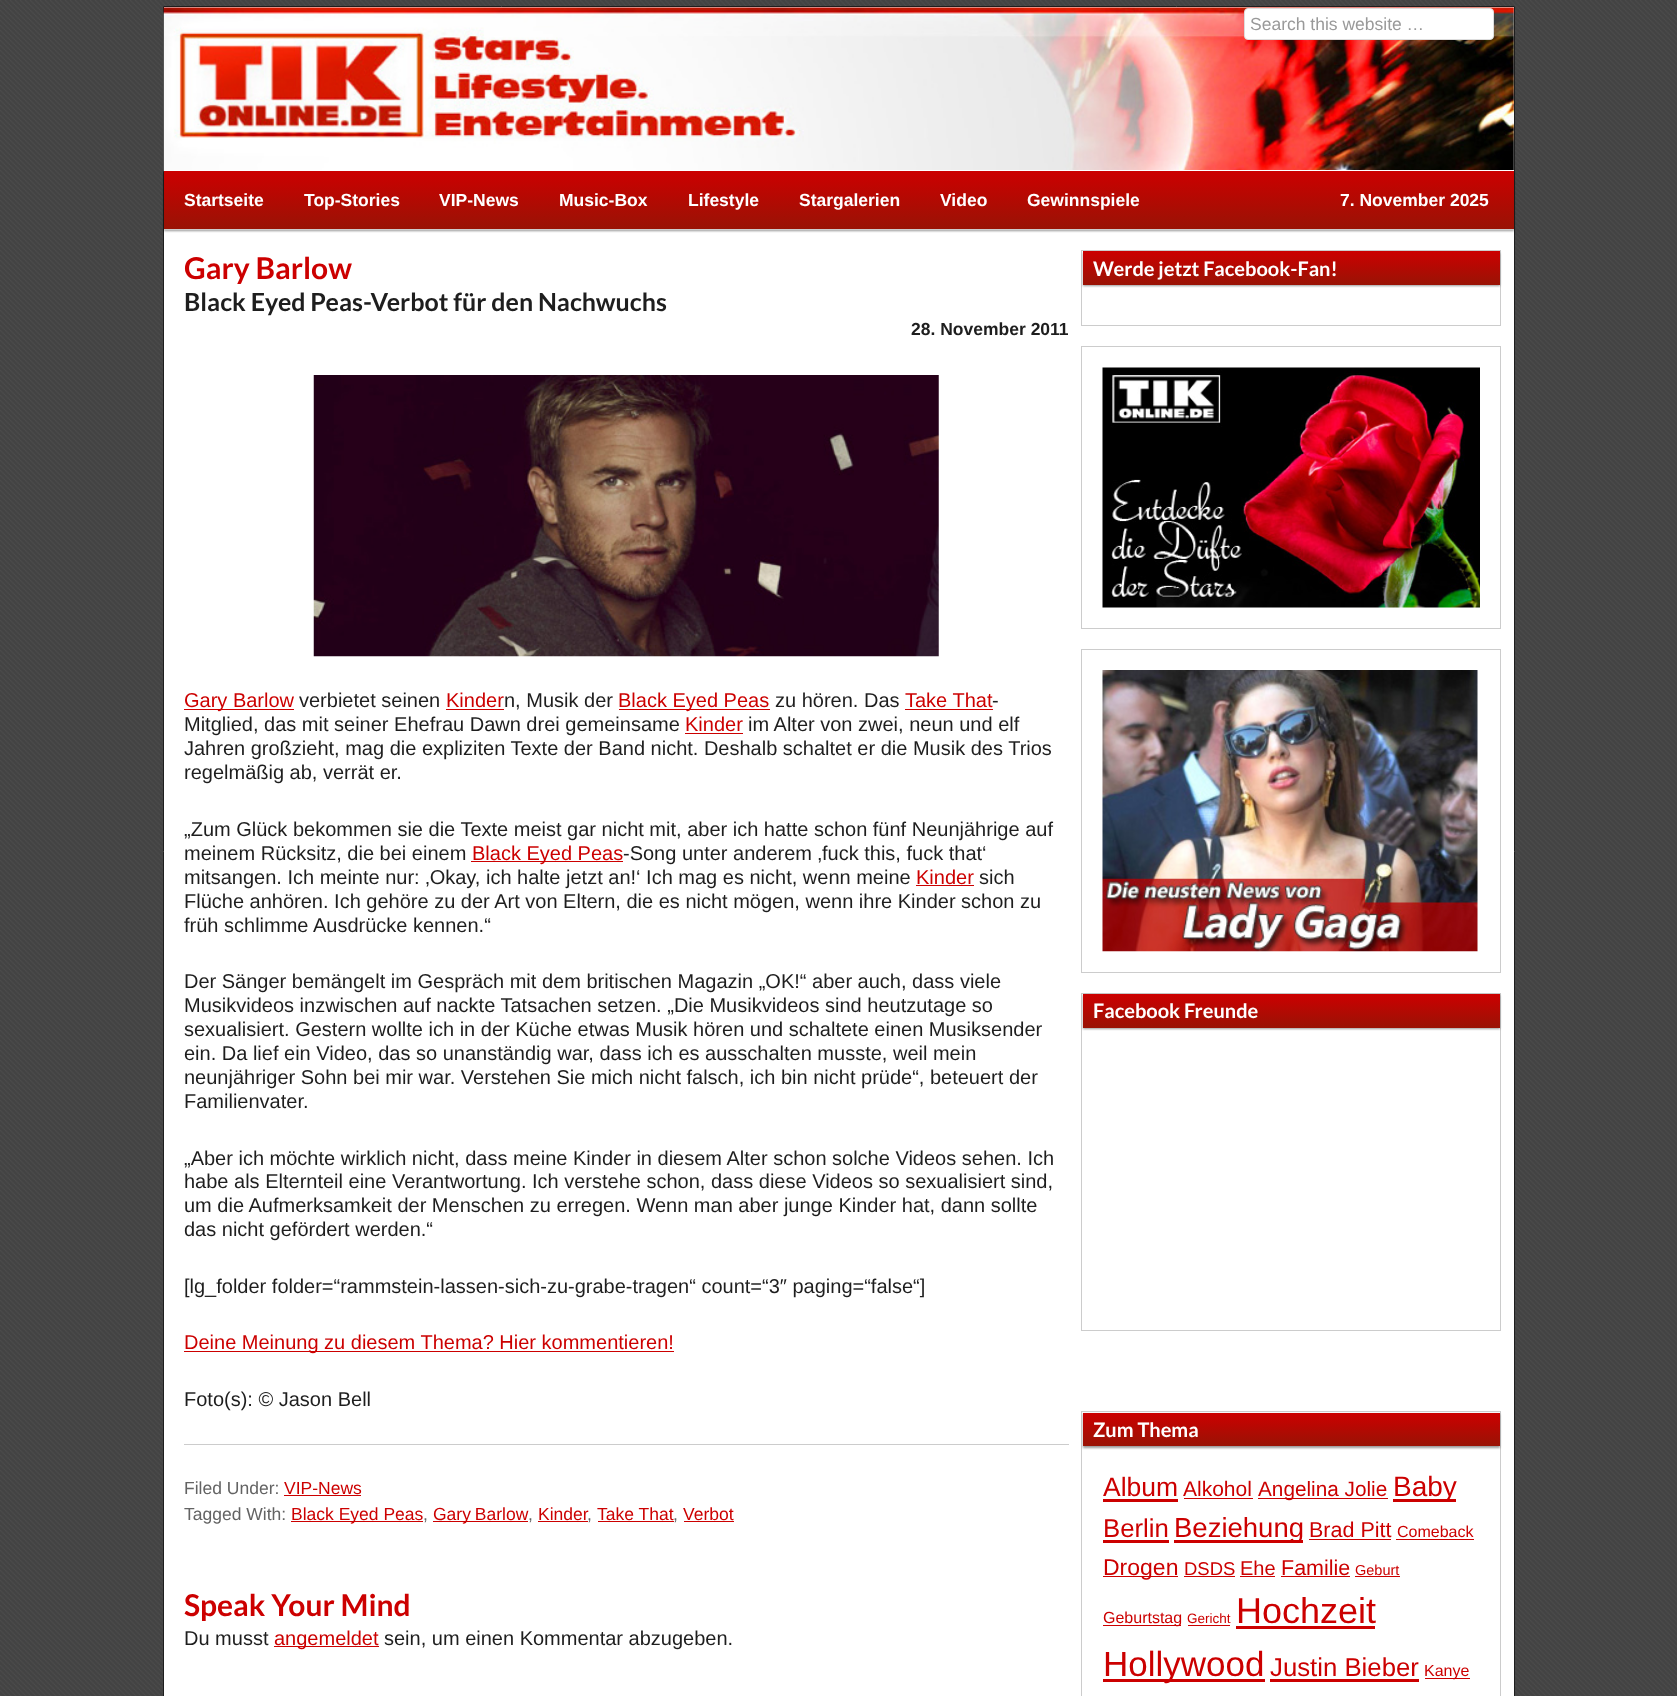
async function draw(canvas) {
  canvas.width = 1677
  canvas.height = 1696
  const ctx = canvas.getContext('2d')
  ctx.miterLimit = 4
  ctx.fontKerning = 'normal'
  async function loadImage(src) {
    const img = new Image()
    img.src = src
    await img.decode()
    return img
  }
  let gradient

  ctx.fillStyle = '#fff'
  ctx.fillRect(0, 0, 1677, 1696)
  ctx.drawImage(await loadImage('image0.png'), 0, 0, 1677, 1696)
  ctx.beginPath()
  ctx.rect(163.5, 6.5, 1351, 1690)
  ctx.fill()
  ctx.strokeStyle = '#1e1e1e'
  ctx.stroke()
  ctx.drawImage(await loadImage('image1.png'), 163, 7, 1351, 165)
  ctx.fillRect(164, 170, 1350, 1)
  ctx.beginPath()
  ctx.roundRect(1244.5, 8.5, 249, 31, 3.5)
  ctx.fill()
  ctx.strokeStyle = '#ddd'
  ctx.stroke()
  ctx.font = '17.5px Liberation Sans'
  ctx.fillStyle = '#999'
  ctx.fillText('Search this website …', 1250, 30)
  ctx.fillStyle = '#00000066'
  ctx.filter = 'blur(1px)'
  ctx.beginPath()
  ctx.rect(164, 173, 1350, 58)
  ctx.fill()
  ctx.filter = 'none'
  gradient = ctx.createLinearGradient(839, 171, 839, 229)
  gradient.addColorStop(0, '#c00')
  gradient.addColorStop(1, '#991305')
  ctx.fillStyle = gradient
  ctx.fillRect(164, 171, 1350, 58)
  ctx.fillStyle = '#ccc'
  ctx.fillRect(164, 229, 1350, 1)
  ctx.font = 'bold 17.5px Liberation Sans'
  ctx.fillStyle = '#fff'
  ctx.fillText('Startseite', 184, 206)
  ctx.fillText('Top-Stories', 304, 206)
  ctx.fillText('VIP-News', 439, 206)
  ctx.fillText('Music-Box', 559, 206)
  ctx.fillText('Lifestyle', 688, 206)
  ctx.fillText('Stargalerien', 799, 206)
  ctx.fillText('Video', 940, 206)
  ctx.fillText('Gewinnspiele', 1027, 206)
  ctx.fillText('7. November 2025', 1340, 206)
  ctx.font = 'bold 30px Lato'
  ctx.fillStyle = '#c00'
  ctx.fillText('Gary Barlow', 184, 279)
  ctx.font = 'bold 25px Lato'
  ctx.fillStyle = '#1e1e1e'
  ctx.fillText('Black Eyed Peas-Verbot für den Nachwuchs', 184, 311)
  ctx.font = 'bold 17.5px Liberation Sans'
  ctx.fillText('28. November 2011', 911, 335)
  ctx.drawImage(await loadImage('image2.png'), 313, 375, 626, 282)
  ctx.fillStyle = '#c00'
  ctx.fillRect(184, 709, 110, 1)
  ctx.font = '20px Liberation Sans'
  ctx.fillText('Gary Barlow', 184, 707)
  ctx.fillStyle = '#1e1e1e'
  ctx.fillText('verbietet seinen', 299, 707)
  ctx.fillStyle = '#c00'
  ctx.fillText('Kinder', 446, 707)
  ctx.fillRect(446, 709, 58, 1)
  ctx.fillStyle = '#1e1e1e'
  ctx.fillText('n, Musik der', 504, 707)
  ctx.fillStyle = '#c00'
  ctx.fillRect(619, 709, 151, 1)
  ctx.fillText('Black Eyed Peas', 618, 707)
  ctx.fillStyle = '#1e1e1e'
  ctx.fillText('zu hören. Das', 775, 707)
  ctx.fillStyle = '#c00'
  ctx.fillText('Take That', 905, 707)
  ctx.fillRect(905, 709, 88, 1)
  ctx.fillStyle = '#1e1e1e'
  ctx.fillText('-', 992, 707)
  ctx.fillText('Mitglied, das mit seiner Ehefrau Dawn drei gemeinsame', 184, 731)
  ctx.fillStyle = '#c00'
  ctx.fillText('Kinder', 685, 731)
  ctx.fillRect(685, 733, 58, 1)
  ctx.fillStyle = '#1e1e1e'
  ctx.fillText('im Alter von zwei, neun und elf', 748, 731)
  ctx.fillText('Jahren großzieht, mag die expliziten Texte der Band nicht. Deshalb schaltet er die Musik des Trios', 184, 755)
  ctx.fillText('regelmäßig ab, verrät er.', 184, 779)
  ctx.fillText('„Zum Glück bekommen sie die Texte meist gar nicht mit, aber ich hatte schon fünf Neunjährige auf', 184, 836)
  ctx.fillText('meinem Rücksitz, die bei einem', 184, 860)
  ctx.fillStyle = '#c00'
  ctx.fillRect(471, 861, 152, 1)
  ctx.fillText('Black Eyed Peas', 472, 860)
  ctx.fillStyle = '#1e1e1e'
  ctx.fillText('-Song unter anderem ‚fuck this, fuck that‘', 623, 860)
  ctx.fillText('mitsangen. Ich meinte nur: ‚Okay, ich halte jetzt an!‘ Ich mag es nicht, wenn meine', 184, 884)
  ctx.fillStyle = '#c00'
  ctx.fillText('Kinder', 916, 884)
  ctx.fillRect(916, 885, 58, 1)
  ctx.fillStyle = '#1e1e1e'
  ctx.fillText('sich', 979, 884)
  ctx.fillText('Flüche anhören. Ich gehöre zu der Art von Eltern, die es nicht mögen, wenn ihre Kinder schon zu', 184, 908)
  ctx.fillText('früh schlimme Ausdrücke kennen.“', 184, 932)
  ctx.fillText('Der Sänger bemängelt im Gespräch mit dem britischen Magazin „OK!“ aber auch, dass viele', 184, 988)
  ctx.fillText('Musikvideos inzwischen auf nackte Tatsachen setzen. „Die Musikvideos sind heutzutage so', 184, 1012)
  ctx.fillText('sexualisiert. Gestern wollte ich in der Küche etwas Musik hören und schaltete einen Musiksender', 184, 1036)
  ctx.fillText('ein. Da lief ein Video, das so unanständig war, dass ich es ausschalten musste, weil mein', 184, 1060)
  ctx.fillText('neunjähriger Sohn bei mir war. Verstehen Sie mich nicht falsch, ich bin nicht prüde“, beteuert der', 184, 1084)
  ctx.fillText('Familienvater.', 184, 1108)
  ctx.fillText('„Aber ich möchte wirklich nicht, dass meine Kinder in diesem Alter schon solche Videos sehen. Ich', 184, 1165)
  ctx.fillText('habe als Elternteil eine Verantwortung. Ich verstehe schon, dass diese Videos so sexualisiert sind,', 184, 1188)
  ctx.fillText('um die Aufmerksamkeit der Menschen zu erregen. Wenn man aber junge Kinder hat, dann sollte', 184, 1212)
  ctx.fillText('das nicht gefördert werden.“', 184, 1236)
  ctx.fillText('[lg_folder folder=“rammstein-lassen-sich-zu-grabe-tragen“ count=“3″ paging=“false“]', 184, 1293)
  ctx.fillStyle = '#c00'
  ctx.fillRect(184, 1351, 490, 1)
  ctx.fillText('Deine Meinung zu diesem Thema? Hier kommentieren!', 184, 1349)
  ctx.fillStyle = '#1e1e1e'
  ctx.fillText('Foto(s): © Jason Bell', 184, 1406)
  ctx.fillStyle = '#ccc'
  ctx.fillRect(184, 1444, 885, 1)
  ctx.font = '17.5px Liberation Sans'
  ctx.fillStyle = '#636363'
  ctx.fillText('Filed Under:', 184, 1494)
  ctx.fillStyle = '#c00'
  ctx.fillText('VIP-News', 284, 1494)
  ctx.fillRect(284, 1495, 77, 1)
  ctx.fillStyle = '#636363'
  ctx.fillText('Tagged With:', 184, 1520)
  ctx.fillStyle = '#c00'
  ctx.fillRect(291, 1521, 132, 1)
  ctx.fillText('Black Eyed Peas', 291, 1520)
  ctx.fillStyle = '#636363'
  ctx.fillText(',', 423, 1520)
  ctx.fillStyle = '#c00'
  ctx.fillRect(433, 1521, 95, 1)
  ctx.wordSpacing = '-1px'
  ctx.fillText('Gary Barlow', 433, 1520)
  ctx.wordSpacing = '0px'
  ctx.fillStyle = '#636363'
  ctx.fillText(',', 528, 1520)
  ctx.fillStyle = '#c00'
  ctx.fillText('Kinder', 538, 1520)
  ctx.fillRect(538, 1521, 50, 1)
  ctx.fillStyle = '#636363'
  ctx.fillText(',', 587, 1520)
  ctx.fillStyle = '#c00'
  ctx.fillText('Take That', 597, 1520)
  ctx.fillRect(598, 1521, 76, 1)
  ctx.fillStyle = '#636363'
  ctx.fillText(',', 673, 1520)
  ctx.fillStyle = '#c00'
  ctx.fillText('Verbot', 683, 1520)
  ctx.fillRect(684, 1521, 50, 1)
  ctx.font = 'bold 30px Lato'
  ctx.fillText('Speak Your Mind', 184, 1616)
  ctx.font = '20px Liberation Sans'
  ctx.fillStyle = '#1e1e1e'
  ctx.fillText('Du musst', 184, 1645)
  ctx.fillStyle = '#c00'
  ctx.fillRect(274, 1646, 105, 1)
  ctx.fillText('angemeldet', 274, 1645)
  ctx.fillStyle = '#1e1e1e'
  ctx.fillText('sein, um einen Kommentar abzugeben.', 384, 1645)
  ctx.strokeStyle = '#ccc'
  ctx.strokeRect(1081.5, 250.5, 419, 75)
  ctx.fillStyle = '#00000066'
  ctx.filter = 'blur(1px)'
  ctx.beginPath()
  ctx.rect(1083, 253, 417, 33)
  ctx.fill()
  ctx.filter = 'none'
  gradient = ctx.createLinearGradient(1291, 251, 1291, 285)
  gradient.addColorStop(0, '#c00')
  gradient.addColorStop(1, '#991305')
  ctx.fillStyle = gradient
  ctx.fillRect(1083, 251, 417, 34)
  ctx.font = 'bold 20px Lato'
  ctx.fillStyle = '#fff'
  ctx.fillText('Werde jetzt Facebook-Fan!', 1093, 276)
  ctx.strokeRect(1081.5, 346.5, 419, 282)
  ctx.drawImage(await loadImage('image3.png'), 1102, 367, 378, 241)
  ctx.strokeRect(1081.5, 649.5, 419, 323)
  ctx.drawImage(await loadImage('image4.png'), 1102, 670, 376, 282)
  ctx.strokeRect(1081.5, 993.5, 419, 337)
  ctx.fillStyle = '#00000066'
  ctx.filter = 'blur(1px)'
  ctx.beginPath()
  ctx.rect(1083, 995, 417, 34)
  ctx.fill()
  ctx.filter = 'none'
  gradient = ctx.createLinearGradient(1291, 994, 1291, 1028)
  gradient.addColorStop(0, '#c00')
  gradient.addColorStop(1, '#991305')
  ctx.fillStyle = gradient
  ctx.fillRect(1083, 994, 417, 34)
  ctx.fillStyle = '#fff'
  ctx.fillText('Facebook Freunde', 1093, 1018)
  ctx.strokeRect(1081.5, 1411.5, 419, 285)
  ctx.fillStyle = '#00000066'
  ctx.filter = 'blur(1px)'
  ctx.beginPath()
  ctx.rect(1083, 1414, 417, 34)
  ctx.fill()
  ctx.filter = 'none'
  gradient = ctx.createLinearGradient(1291, 1413, 1291, 1446)
  gradient.addColorStop(0, '#c00')
  gradient.addColorStop(1, '#991305')
  ctx.fillStyle = gradient
  ctx.fillRect(1083, 1413, 417, 33)
  ctx.fillStyle = '#fff'
  ctx.fillText('Zum Thema', 1093, 1437)
  ctx.font = '26.5px Liberation Sans'
  ctx.fillStyle = '#c00'
  ctx.fillText('Album', 1103, 1496)
  ctx.fillRect(1103, 1499, 75, 3)
  ctx.font = '21px Liberation Sans'
  ctx.fillText('Alkohol', 1183, 1496)
  ctx.fillRect(1184, 1498, 69, 1)
  ctx.fillRect(1258, 1498, 130, 1)
  ctx.font = '20.75px Liberation Sans'
  ctx.fillText('Angelina Jolie', 1258, 1496)
  ctx.fillRect(1393, 1499, 63, 3)
  ctx.font = '28px Liberation Sans'
  ctx.fillText('Baby', 1393, 1496)
  ctx.font = '25.75px Liberation Sans'
  ctx.fillText('Berlin', 1103, 1537)
  ctx.fillRect(1103, 1540, 66, 3)
  ctx.fillRect(1174, 1540, 129, 3)
  ctx.font = '27.5px Liberation Sans'
  ctx.fillText('Beziehung', 1174, 1537)
  ctx.font = '21.5px Liberation Sans'
  ctx.fillText('Brad Pitt', 1309, 1537)
  ctx.fillRect(1309, 1539, 82, 1)
  ctx.font = '16px Liberation Sans'
  ctx.fillText('Comeback', 1397, 1537)
  ctx.fillRect(1396, 1539, 78, 1)
  ctx.fillRect(1103, 1576, 75, 1)
  ctx.font = '23px Liberation Sans'
  ctx.fillText('Drogen', 1103, 1575)
  ctx.font = '18.5px Liberation Sans'
  ctx.fillText('DSDS', 1184, 1575)
  ctx.fillRect(1184, 1576, 51, 1)
  ctx.font = '20px Liberation Sans'
  ctx.fillText('Ehe', 1240, 1575)
  ctx.fillRect(1240, 1576, 35, 1)
  ctx.font = '21.5px Liberation Sans'
  ctx.fillText('Familie', 1281, 1575)
  ctx.fillRect(1281, 1576, 69, 1)
  ctx.font = '14.5px Liberation Sans'
  ctx.fillText('Geburt', 1355, 1575)
  ctx.fillRect(1355, 1576, 45, 1)
  ctx.fillRect(1103, 1625, 78, 1)
  ctx.font = '16px Liberation Sans'
  ctx.fillText('Geburtstag', 1103, 1623)
  ctx.font = '13.5px Liberation Sans'
  ctx.fillText('Gericht', 1187, 1623)
  ctx.fillRect(1188, 1625, 42, 1)
  ctx.font = '36px Liberation Sans'
  ctx.fillText('Hochzeit', 1236, 1623)
  ctx.fillRect(1236, 1626, 139, 3)
  ctx.fillRect(1103, 1679, 162, 3)
  ctx.font = '35px Liberation Sans'
  ctx.fillText('Hollywood', 1103, 1676)
  ctx.font = '25.75px Liberation Sans'
  ctx.fillText('Justin Bieber', 1270, 1676)
  ctx.fillRect(1270, 1679, 149, 3)
  ctx.fillRect(1425, 1678, 45, 1)
  ctx.font = '16px Liberation Sans'
  ctx.fillText('Kanye', 1424, 1676)
}

draw(document.querySelector('canvas'))
